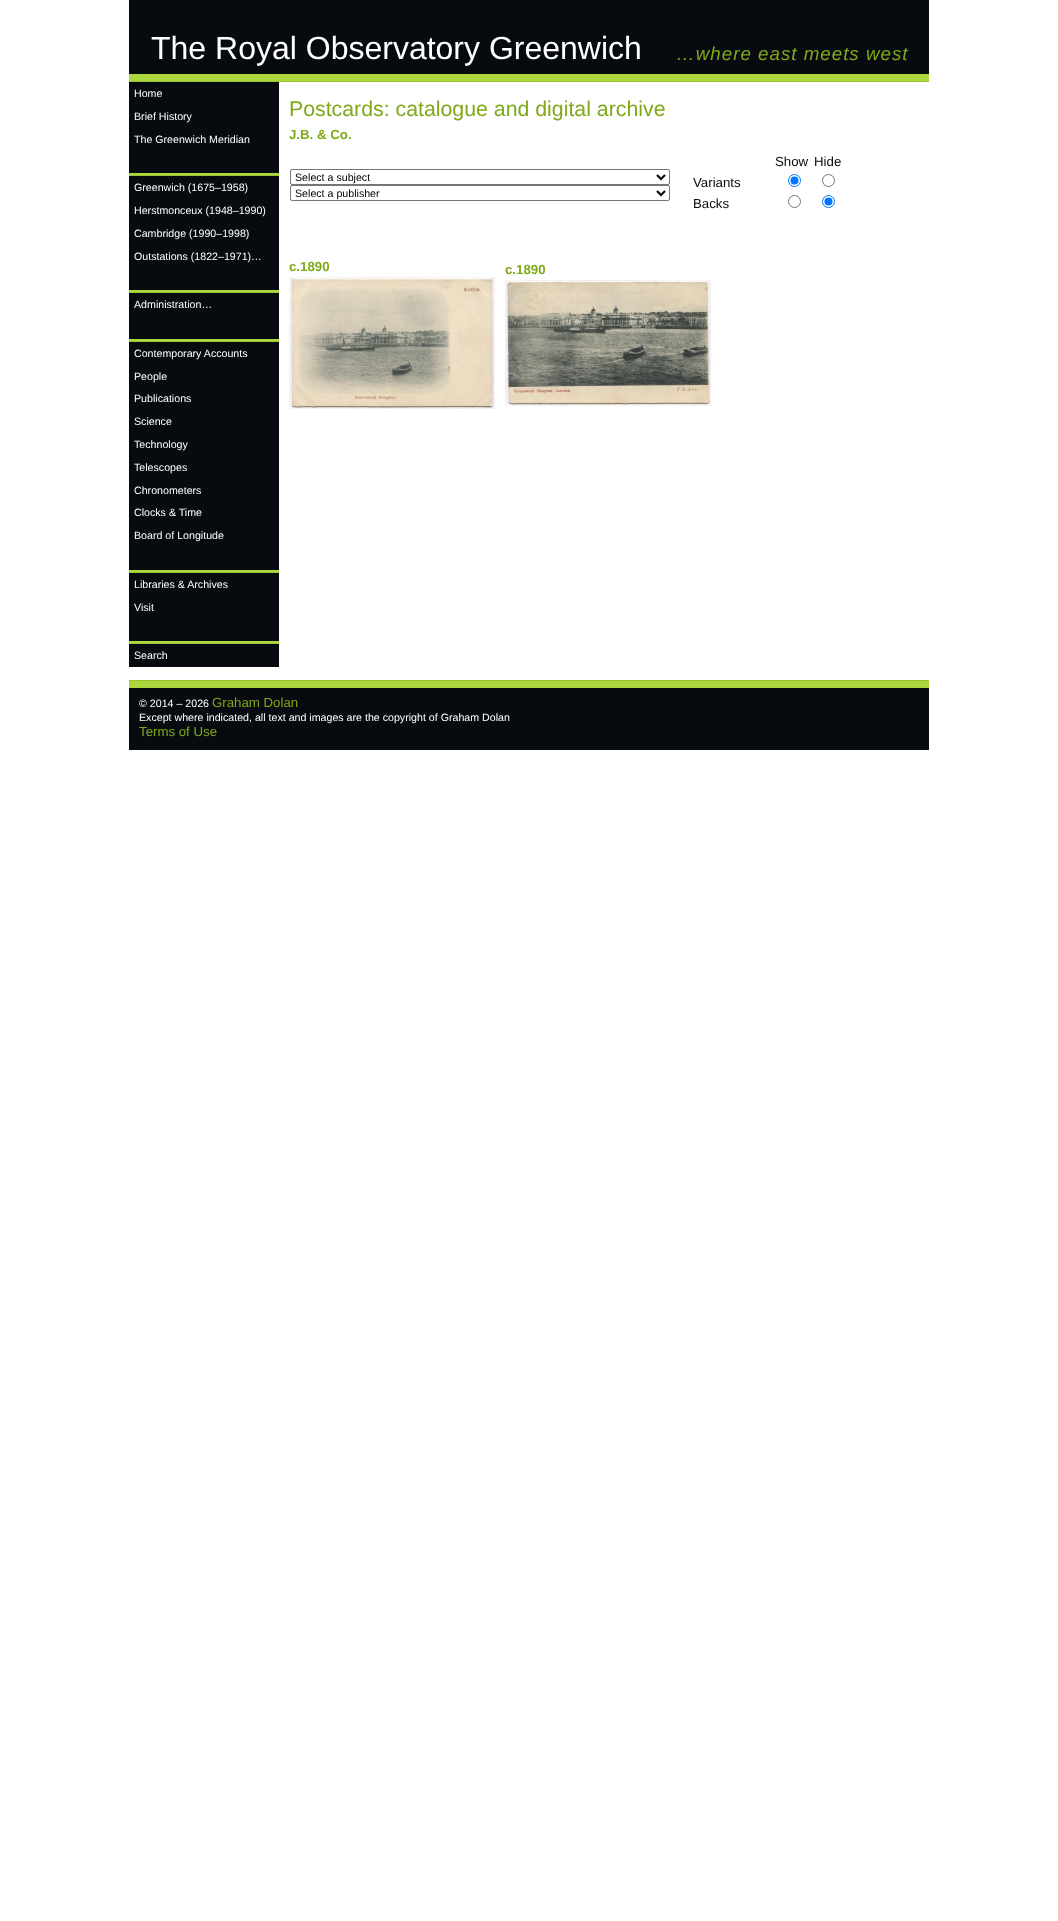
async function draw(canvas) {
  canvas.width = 1058
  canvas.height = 1921
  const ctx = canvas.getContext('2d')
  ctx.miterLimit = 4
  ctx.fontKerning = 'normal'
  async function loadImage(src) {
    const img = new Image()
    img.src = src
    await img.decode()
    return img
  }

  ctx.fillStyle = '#fff'
  ctx.fillRect(0, 0, 1058, 1921)
  ctx.fillStyle = '#070b0f'
  ctx.fillRect(129, 0, 800, 74)
  ctx.font = '32px Liberation Sans'
  ctx.fillStyle = '#fff'
  ctx.fillText('The Royal Observatory Greenwich', 151, 59)
  ctx.letterSpacing = '1px'
  ctx.font = 'italic 18.75px Liberation Sans'
  ctx.fillStyle = '#80a919'
  ctx.fillText('…where east meets west', 676, 60)
  ctx.fillStyle = '#acd83e'
  ctx.fillRect(129, 74, 800, 7)
  ctx.fillStyle = '#9ac237'
  ctx.fillRect(129, 81, 800, 1)
  ctx.fillStyle = '#070b0f'
  ctx.fillRect(129, 82, 150, 91)
  ctx.letterSpacing = '0px'
  ctx.font = '10.65px Liberation Sans'
  ctx.fillStyle = '#fff'
  ctx.fillText('Home', 134, 97)
  ctx.fillText('Brief History', 134, 120)
  ctx.fillText('The Greenwich Meridian', 134, 143)
  ctx.fillStyle = '#acd83e'
  ctx.fillRect(129, 173, 150, 2)
  ctx.fillStyle = '#9ac237'
  ctx.fillRect(129, 175, 150, 1)
  ctx.fillStyle = '#070b0f'
  ctx.fillRect(129, 176, 150, 114)
  ctx.fillStyle = '#fff'
  ctx.fillText('Greenwich (1675–1958)', 134, 191)
  ctx.fillText('Herstmonceux (1948–1990)', 134, 214)
  ctx.fillText('Cambridge (1990–1998)', 134, 237)
  ctx.fillText('Outstations (1822–1971)…', 134, 260)
  ctx.fillStyle = '#acd83e'
  ctx.fillRect(129, 290, 150, 2)
  ctx.fillStyle = '#9ac237'
  ctx.fillRect(129, 292, 150, 1)
  ctx.fillStyle = '#070b0f'
  ctx.fillRect(129, 293, 150, 46)
  ctx.fillStyle = '#fff'
  ctx.fillText('Administration…', 134, 308)
  ctx.fillStyle = '#acd83e'
  ctx.fillRect(129, 339, 150, 2)
  ctx.fillStyle = '#9ac237'
  ctx.fillRect(129, 341, 150, 1)
  ctx.fillStyle = '#070b0f'
  ctx.fillRect(129, 342, 150, 228)
  ctx.fillStyle = '#fff'
  ctx.fillText('Contemporary Accounts', 134, 357)
  ctx.fillText('People', 134, 380)
  ctx.fillText('Publications', 134, 402)
  ctx.fillText('Science', 134, 425)
  ctx.fillText('Technology', 134, 448)
  ctx.fillText('Telescopes', 134, 471)
  ctx.fillText('Chronometers', 134, 494)
  ctx.fillText('Clocks & Time', 134, 516)
  ctx.fillText('Board of Longitude', 134, 539)
  ctx.fillStyle = '#acd83e'
  ctx.fillRect(129, 570, 150, 2)
  ctx.fillStyle = '#9ac237'
  ctx.fillRect(129, 572, 150, 1)
  ctx.fillStyle = '#070b0f'
  ctx.fillRect(129, 573, 150, 68)
  ctx.fillStyle = '#fff'
  ctx.fillText('Libraries & Archives', 134, 588)
  ctx.fillText('Visit', 134, 611)
  ctx.fillStyle = '#acd83e'
  ctx.fillRect(129, 641, 150, 2)
  ctx.fillStyle = '#9ac237'
  ctx.fillRect(129, 643, 150, 1)
  ctx.fillStyle = '#070b0f'
  ctx.fillRect(129, 644, 150, 23)
  ctx.fillStyle = '#fff'
  ctx.fillText('Search', 134, 659)
  ctx.font = '21.3px Liberation Sans'
  ctx.fillStyle = '#80a919'
  ctx.fillText('Postcards: catalogue and digital archive', 289, 116)
  ctx.font = 'bold 13.25px Liberation Sans'
  ctx.fillText('J.B. & Co.', 289, 139)
  ctx.beginPath()
  ctx.roundRect(290.5, 169.5, 379, 15, 1.5)
  ctx.strokeStyle = '#767676'
  ctx.stroke()
  ctx.beginPath()
  ctx.moveTo(657, 175)
  ctx.lineTo(661, 179)
  ctx.lineTo(665, 175)
  ctx.strokeStyle = '#000'
  ctx.lineWidth = 2
  ctx.stroke()
  ctx.font = '10.65px Liberation Sans'
  ctx.fillStyle = '#000'
  ctx.fillText('Select a subject', 295, 181)
  ctx.beginPath()
  ctx.roundRect(290.5, 185.5, 379, 15, 1.5)
  ctx.strokeStyle = '#767676'
  ctx.lineWidth = 1
  ctx.stroke()
  ctx.beginPath()
  ctx.moveTo(657, 191)
  ctx.lineTo(661, 195)
  ctx.lineTo(665, 191)
  ctx.strokeStyle = '#000'
  ctx.lineWidth = 2
  ctx.stroke()
  ctx.fillText('Select a publisher', 295, 197)
  ctx.font = '13.25px Liberation Sans'
  ctx.fillStyle = '#070b0f'
  ctx.fillText('Show', 775, 166)
  ctx.fillText('Hide', 814, 166)
  ctx.fillText('Variants', 693, 187)
  ctx.beginPath()
  ctx.arc(794.5, 180.5, 6, 0, 2 * Math.PI)
  ctx.strokeStyle = '#0075ff'
  ctx.lineWidth = 1
  ctx.stroke()
  ctx.fillStyle = '#0075ff'
  ctx.beginPath()
  ctx.arc(794.5, 180.5, 4, 0, 2 * Math.PI)
  ctx.fill()
  ctx.beginPath()
  ctx.arc(828.5, 180.5, 6, 0, 2 * Math.PI)
  ctx.strokeStyle = '#767676'
  ctx.stroke()
  ctx.fillStyle = '#070b0f'
  ctx.fillText('Backs', 693, 208)
  ctx.beginPath()
  ctx.arc(794.5, 201.5, 6, 0, 2 * Math.PI)
  ctx.stroke()
  ctx.beginPath()
  ctx.arc(828.5, 201.5, 6, 0, 2 * Math.PI)
  ctx.strokeStyle = '#0075ff'
  ctx.stroke()
  ctx.fillStyle = '#0075ff'
  ctx.beginPath()
  ctx.arc(828.5, 201.5, 4, 0, 2 * Math.PI)
  ctx.fill()
  ctx.font = 'bold 13.25px Liberation Sans'
  ctx.fillStyle = '#80a919'
  ctx.fillText('c.1890', 289, 271)
  ctx.drawImage(await loadImage('image0.png'), 289, 277, 206, 132)
  ctx.fillText('c.1890', 505, 274)
  ctx.drawImage(await loadImage('image1.png'), 505, 280, 206, 126)
  ctx.fillStyle = '#acd83e'
  ctx.fillRect(129, 681, 800, 7)
  ctx.fillStyle = '#9ac237'
  ctx.fillRect(129, 680, 800, 1)
  ctx.fillStyle = '#070b0f'
  ctx.fillRect(129, 688, 800, 62)
  ctx.font = '10.65px Liberation Sans'
  ctx.fillStyle = '#fff'
  ctx.fillText('© 2014 – 2026', 139, 707)
  ctx.font = '13.25px Liberation Sans'
  ctx.fillStyle = '#80a919'
  ctx.fillText('Graham Dolan', 212, 707)
  ctx.font = '10.65px Liberation Sans'
  ctx.fillStyle = '#fff'
  ctx.fillText('Except where indicated, all text and images are the copyright of Graham Dolan', 139, 721)
  ctx.font = '13.25px Liberation Sans'
  ctx.fillStyle = '#80a919'
  ctx.fillText('Terms of Use', 139, 736)
}

draw(document.querySelector('canvas'))
